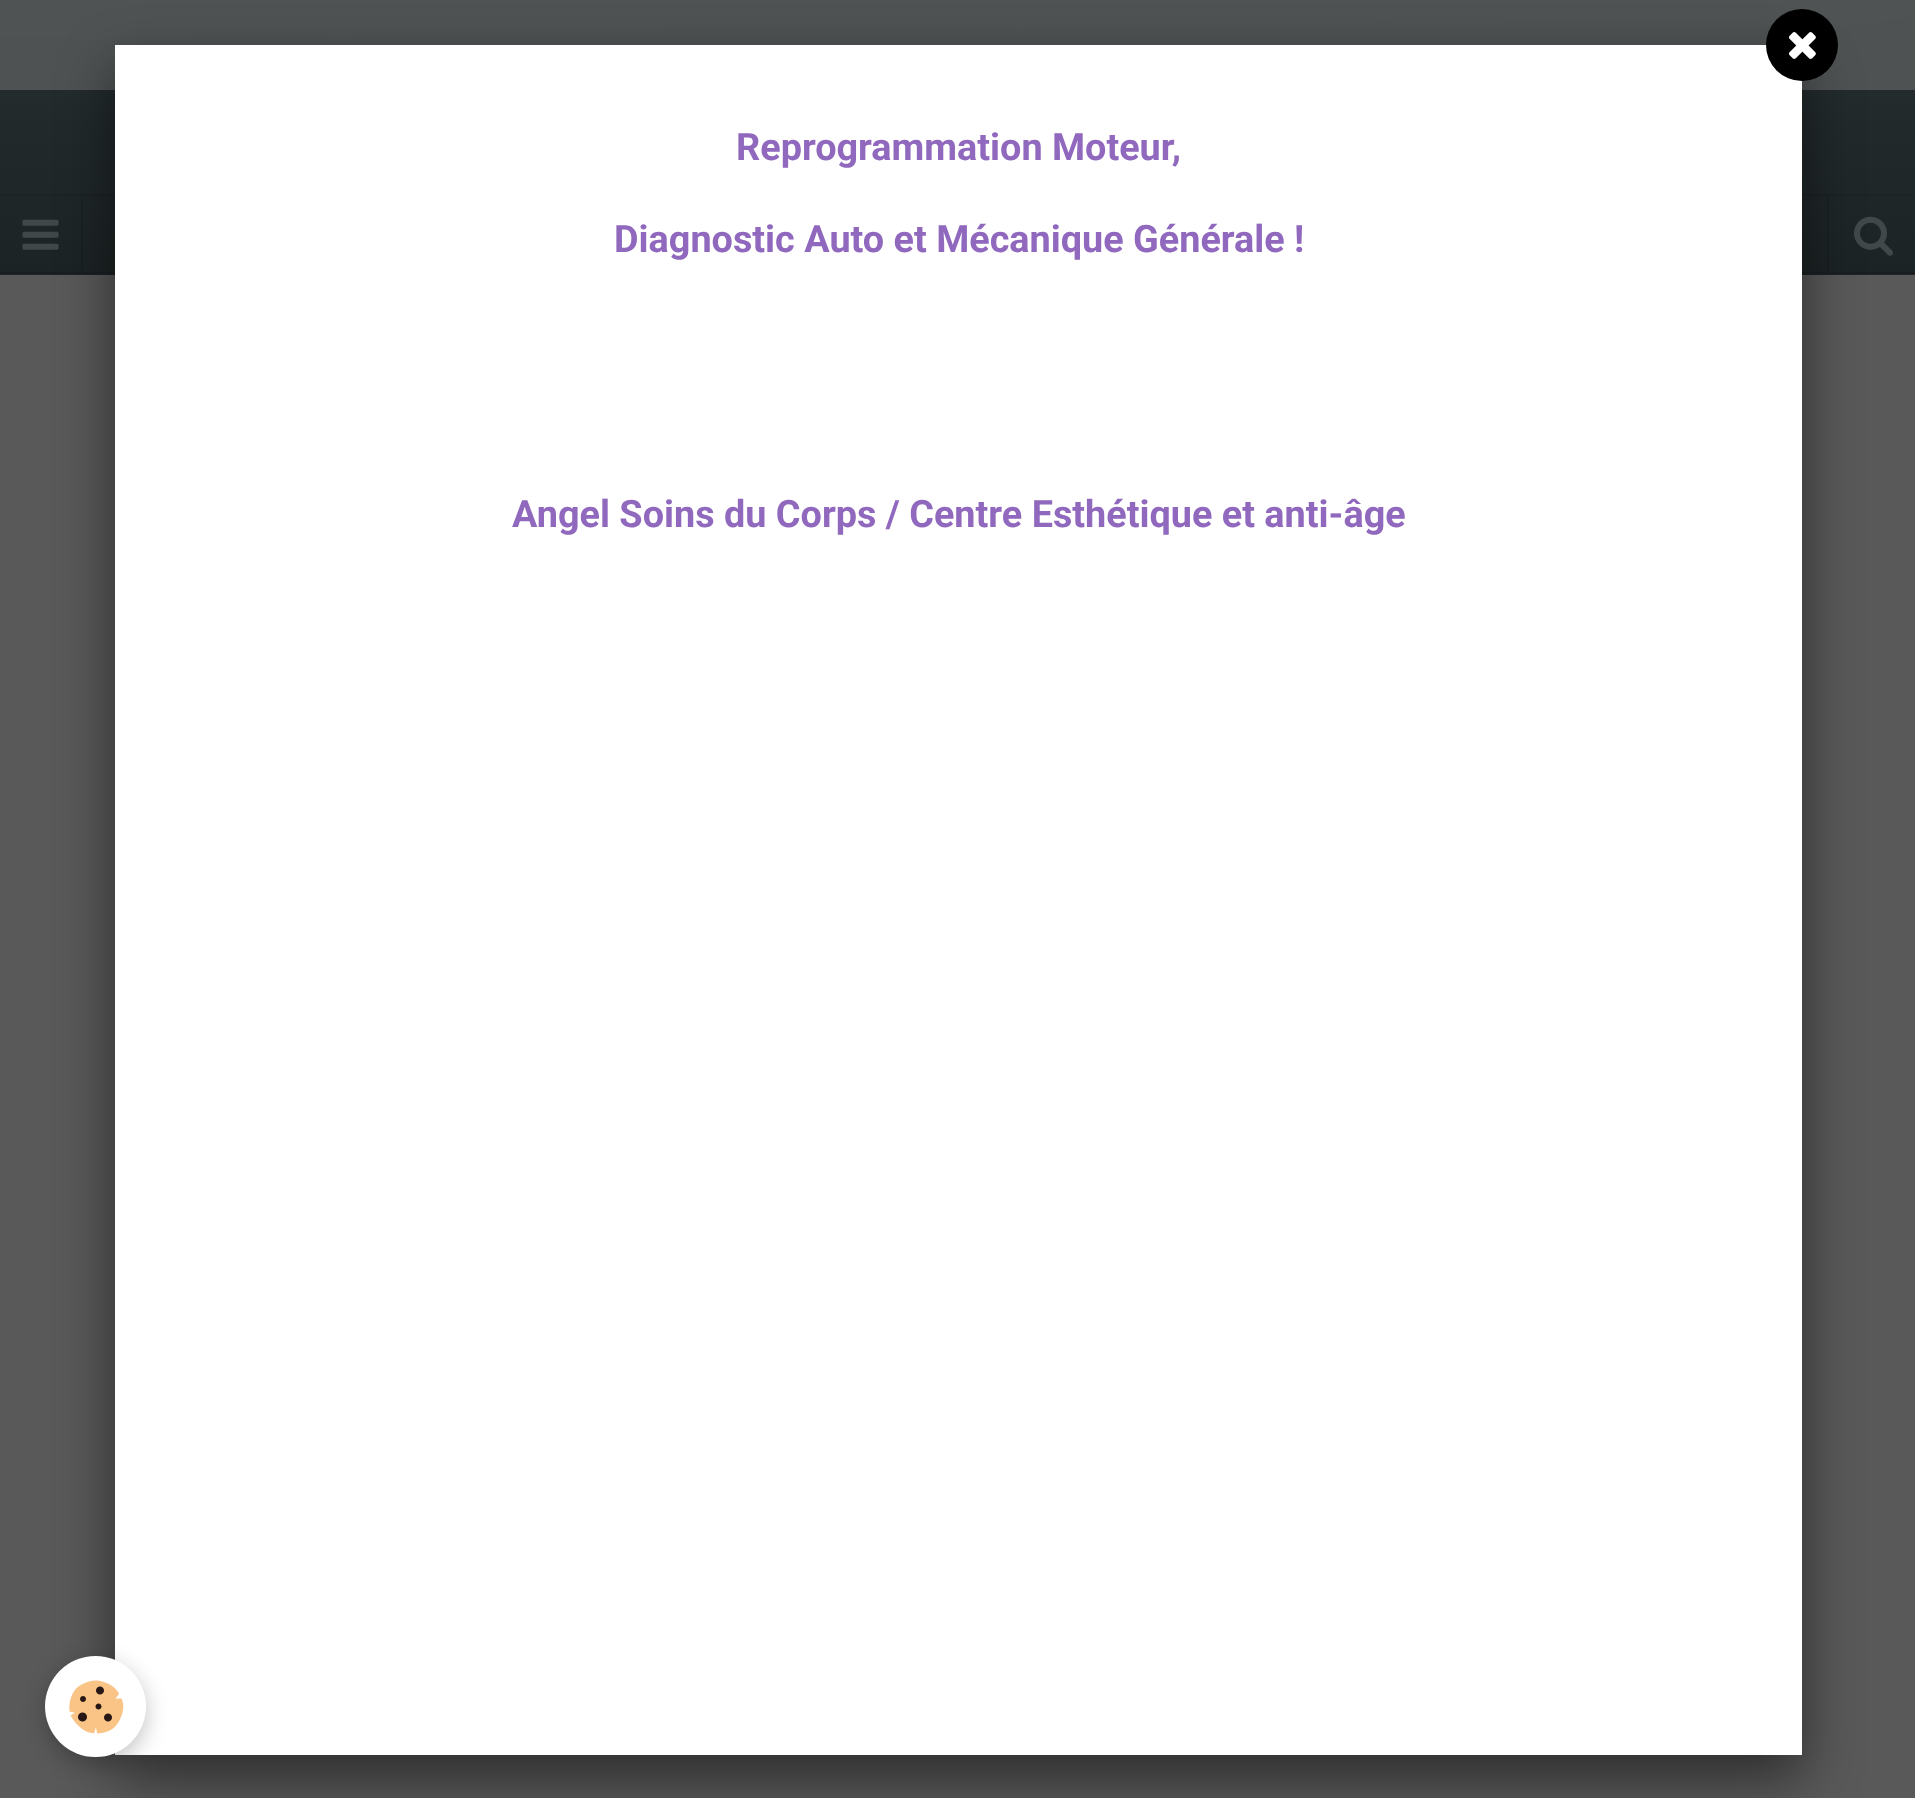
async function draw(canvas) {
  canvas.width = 1915
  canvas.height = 1798
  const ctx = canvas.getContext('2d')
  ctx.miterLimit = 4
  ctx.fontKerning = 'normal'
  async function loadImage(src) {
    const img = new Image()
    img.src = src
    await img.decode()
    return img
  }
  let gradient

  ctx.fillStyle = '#535759'
  ctx.fillRect(0, 0, 1915, 1798)
  ctx.drawImage(await loadImage('image0.png'), 0, 0, 1915, 90)
  gradient = ctx.createLinearGradient(959, 90, 959, 275)
  gradient.addColorStop(0, '#232b2d')
  gradient.addColorStop(1, '#1c2324')
  ctx.fillStyle = gradient
  ctx.fillRect(0, 90, 1915, 185)
  ctx.fillStyle = '#1c2324'
  ctx.fillRect(0, 194, 1915, 2)
  ctx.fillStyle = '#191f21'
  ctx.fillRect(0, 272, 1915, 2)
  ctx.fillStyle = '#0000001a'
  ctx.beginPath()
  ctx.moveTo(83, 196)
  ctx.lineTo(83, 272)
  ctx.lineTo(81, 270)
  ctx.lineTo(81, 198)
  ctx.closePath()
  ctx.fill()
  ctx.drawImage(await loadImage('image1.png'), 22, 219, 37, 31)
  ctx.fillRect(1827, 196, 2, 76)
  ctx.drawImage(await loadImage('image2.png'), 1854, 216, 39, 40)
  ctx.fillStyle = '#595959'
  ctx.fillRect(0, 275, 1915, 1523)
  ctx.fillStyle = '#00000080'
  ctx.filter = 'blur(28px)'
  ctx.beginPath()
  ctx.rect(115, 68, 1687, 1710)
  ctx.fill()
  ctx.filter = 'none'
  ctx.fillStyle = '#fff'
  ctx.fillRect(115, 45, 1687, 1710)
  ctx.fillStyle = '#000'
  ctx.beginPath()
  ctx.arc(1802, 45, 36, 0, 2 * Math.PI)
  ctx.fill()
  ctx.drawImage(await loadImage('image3.png'), 1789, 32, 27, 27)
  ctx.font = 'bold 37.8px Roboto'
  ctx.fillStyle = '#9068be'
  ctx.fillText('Reprogrammation Moteur,', 736, 160)
  ctx.fillText('Diagnostic Auto et Mécanique Générale !', 614, 252)
  ctx.fillText('Angel Soins du Corps / Centre Esthétique et anti-âge', 512, 527)
  ctx.fillStyle = '#0000003d'
  ctx.filter = 'blur(11px)'
  ctx.beginPath()
  ctx.roundRect(45, 1663, 101, 101, 50.5)
  ctx.fill()
  ctx.filter = 'none'
  ctx.fillStyle = '#fff'
  ctx.beginPath()
  ctx.arc(95.5, 1706.5, 50.5, 0, 2 * Math.PI)
  ctx.fill()
  ctx.drawImage(await loadImage('image4.png'), 69, 1680, 55, 54)
}

draw(document.querySelector('canvas'))
